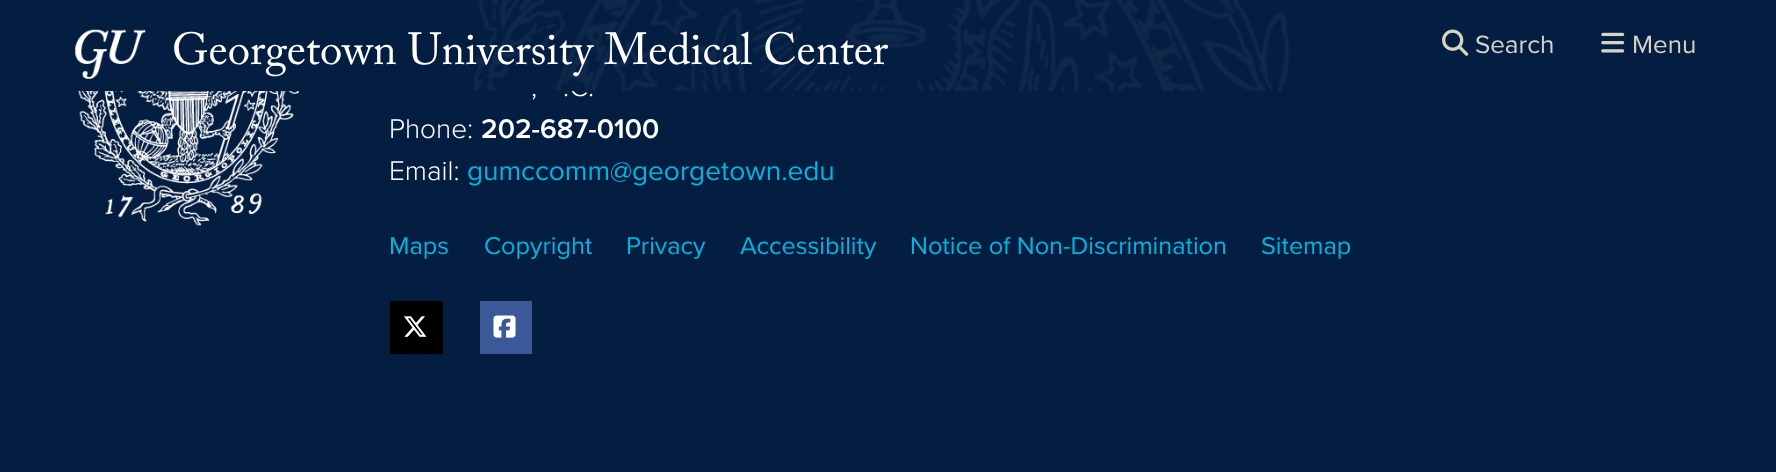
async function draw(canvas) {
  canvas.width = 1776
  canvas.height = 472
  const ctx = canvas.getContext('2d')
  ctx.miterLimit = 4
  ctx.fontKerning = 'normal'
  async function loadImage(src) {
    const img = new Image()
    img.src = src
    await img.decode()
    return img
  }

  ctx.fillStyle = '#041e42'
  ctx.fillRect(0, 0, 1776, 472)
  ctx.font = '300 28px Proxima Nova'
  ctx.fillStyle = '#fff'
  ctx.fillText('.C.', 563, 96)
  ctx.fillStyle = '#041e42'
  ctx.fillRect(570, 77, 17, 14)
  ctx.drawImage(await loadImage('image0.png'), 473, 0, 817, 91)
  ctx.drawImage(await loadImage('image1.png'), 75, 29, 71, 50)
  ctx.font = '44.75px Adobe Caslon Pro'
  ctx.fillStyle = '#fff'
  ctx.fillText('Georgetown University Medical Center', 172, 64)
  ctx.drawImage(await loadImage('image2.png'), 1442, 29, 27, 27)
  ctx.font = '26px Proxima Nova'
  ctx.fillStyle = '#d6d2c4'
  ctx.fillText('Search', 1475, 53)
  ctx.drawImage(await loadImage('image3.png'), 1601, 32, 24, 21)
  ctx.fillText('Menu', 1632, 53)
  ctx.drawImage(await loadImage('image4.png'), 77, 91, 223, 135)
  ctx.font = '300 28px Proxima Nova'
  ctx.fillStyle = '#fff'
  ctx.fillText(',', 531, 96)
  ctx.fillText('Phone:', 389, 138)
  ctx.font = '600 28px Proxima Nova'
  ctx.fillText('202-687-0100', 481, 138)
  ctx.font = '300 28px Proxima Nova'
  ctx.fillText('Email:', 389, 180)
  ctx.font = '28px Proxima Nova'
  ctx.fillStyle = '#00b5e2'
  ctx.fillText('gumccomm@georgetown.edu', 467, 180)
  ctx.font = '25.25px Proxima Nova'
  ctx.fillText('Maps', 389, 254)
  ctx.fillText('Copyright', 484, 254)
  ctx.fillText('Privacy', 626, 254)
  ctx.fillText('Accessibility', 740, 254)
  ctx.fillText('Notice of Non-Discrimination', 910, 254)
  ctx.fillText('Sitemap', 1261, 254)
  ctx.fillStyle = '#000'
  ctx.fillRect(390, 301, 53, 53)
  ctx.drawImage(await loadImage('image5.png'), 404, 316, 23, 21)
  ctx.fillStyle = '#3b5998'
  ctx.fillRect(480, 301, 52, 53)
  ctx.drawImage(await loadImage('image6.png'), 493, 315, 23, 23)
}

draw(document.querySelector('canvas'))
